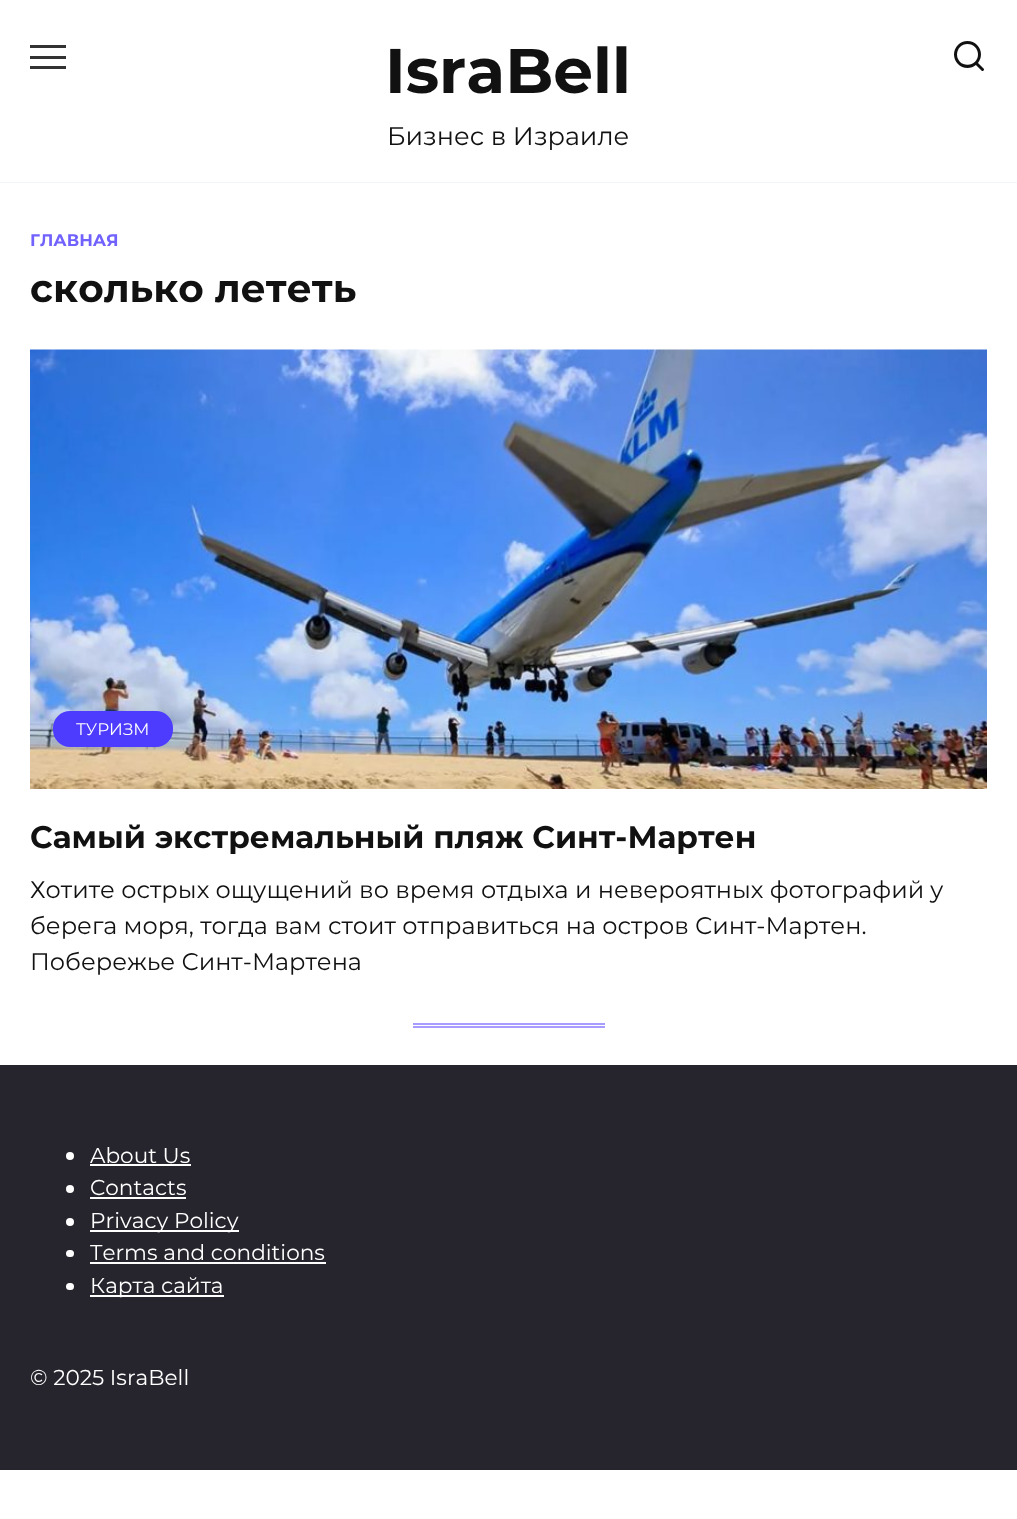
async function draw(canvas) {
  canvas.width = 1017
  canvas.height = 1519
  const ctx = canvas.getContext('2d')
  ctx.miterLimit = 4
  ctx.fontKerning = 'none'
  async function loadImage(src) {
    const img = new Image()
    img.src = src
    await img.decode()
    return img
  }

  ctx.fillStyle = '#fff'
  ctx.fillRect(0, 0, 1017, 1519)
  ctx.fillStyle = '#f2f5f9'
  ctx.fillRect(0, 182, 1017, 1)
  ctx.fillStyle = '#333'
  ctx.fillRect(30, 45, 36, 3)
  ctx.fillRect(30, 56, 36, 3)
  ctx.fillRect(30, 66, 36, 3)
  ctx.font = 'bold 63px Montserrat'
  ctx.fillStyle = '#111'
  ctx.fillText('IsraBell', 385, 93)
  ctx.font = '25.5px Montserrat'
  ctx.fillText('Бизнес в Израиле', 387, 145)
  ctx.font = '36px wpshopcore'
  ctx.fillText('🔍', 951, 71)
  ctx.font = 'bold 16.75px Montserrat'
  ctx.fillStyle = '#7162fe'
  ctx.fillText('ГЛАВНАЯ', 30, 246)
  ctx.font = 'bold 39px Montserrat'
  ctx.fillStyle = '#111'
  ctx.fillText('сколько лететь', 30, 302)
  ctx.drawImage(await loadImage('image0.png'), 30, 349, 957, 440)
  ctx.fillStyle = '#4d3bfe'
  ctx.beginPath()
  ctx.roundRect(53, 711, 120, 36, 17)
  ctx.fill()
  ctx.font = '16.75px Montserrat'
  ctx.fillStyle = '#fff'
  ctx.fillText('ТУРИЗМ', 76, 735)
  ctx.font = 'bold 31.2px Montserrat'
  ctx.fillStyle = '#111'
  ctx.fillText('Самый экстремальный пляж Синт-Мартен', 30, 848)
  ctx.font = '24px Montserrat'
  ctx.fillText('Хотите острых ощущений во время отдыха и невероятных фотографий', 30, 898)
  ctx.fillText('у', 930, 898)
  ctx.fillText('берега моря, тогда вам стоит отправиться на остров Синт-Мартен.', 30, 934)
  ctx.fillText('Побережье Синт-Мартена', 30, 970)
  ctx.fillStyle = '#a69dff'
  ctx.fillRect(413, 1023, 192, 2)
  ctx.fillRect(413, 1026, 192, 2)
  ctx.fillStyle = '#26252d'
  ctx.fillRect(0, 1065, 1017, 405)
  ctx.fillStyle = '#fff'
  ctx.beginPath()
  ctx.arc(70, 1156, 4, 0, 2 * Math.PI)
  ctx.fill()
  ctx.font = '21.6px Montserrat'
  ctx.fillText('About Us', 90, 1163)
  ctx.fillRect(90, 1164, 101, 2)
  ctx.beginPath()
  ctx.arc(70, 1189, 4, 0, 2 * Math.PI)
  ctx.fill()
  ctx.fillText('Contacts', 90, 1195)
  ctx.fillRect(90, 1197, 96, 2)
  ctx.beginPath()
  ctx.arc(70, 1222, 4, 0, 2 * Math.PI)
  ctx.fill()
  ctx.fillRect(90, 1230, 149, 2)
  ctx.fillText('Privacy Policy', 90, 1228)
  ctx.beginPath()
  ctx.roundRect(66, 1250, 8, 7, 3.5)
  ctx.fill()
  ctx.fillText('Terms and conditions', 90, 1260)
  ctx.fillRect(90, 1262, 236, 2)
  ctx.beginPath()
  ctx.roundRect(66, 1283, 8, 7, 3.5)
  ctx.fill()
  ctx.fillRect(90, 1295, 134, 2)
  ctx.fillText('Карта сайта', 90, 1293)
  ctx.fillText('© 2025 IsraBell', 30, 1385)
}

draw(document.querySelector('canvas'))
